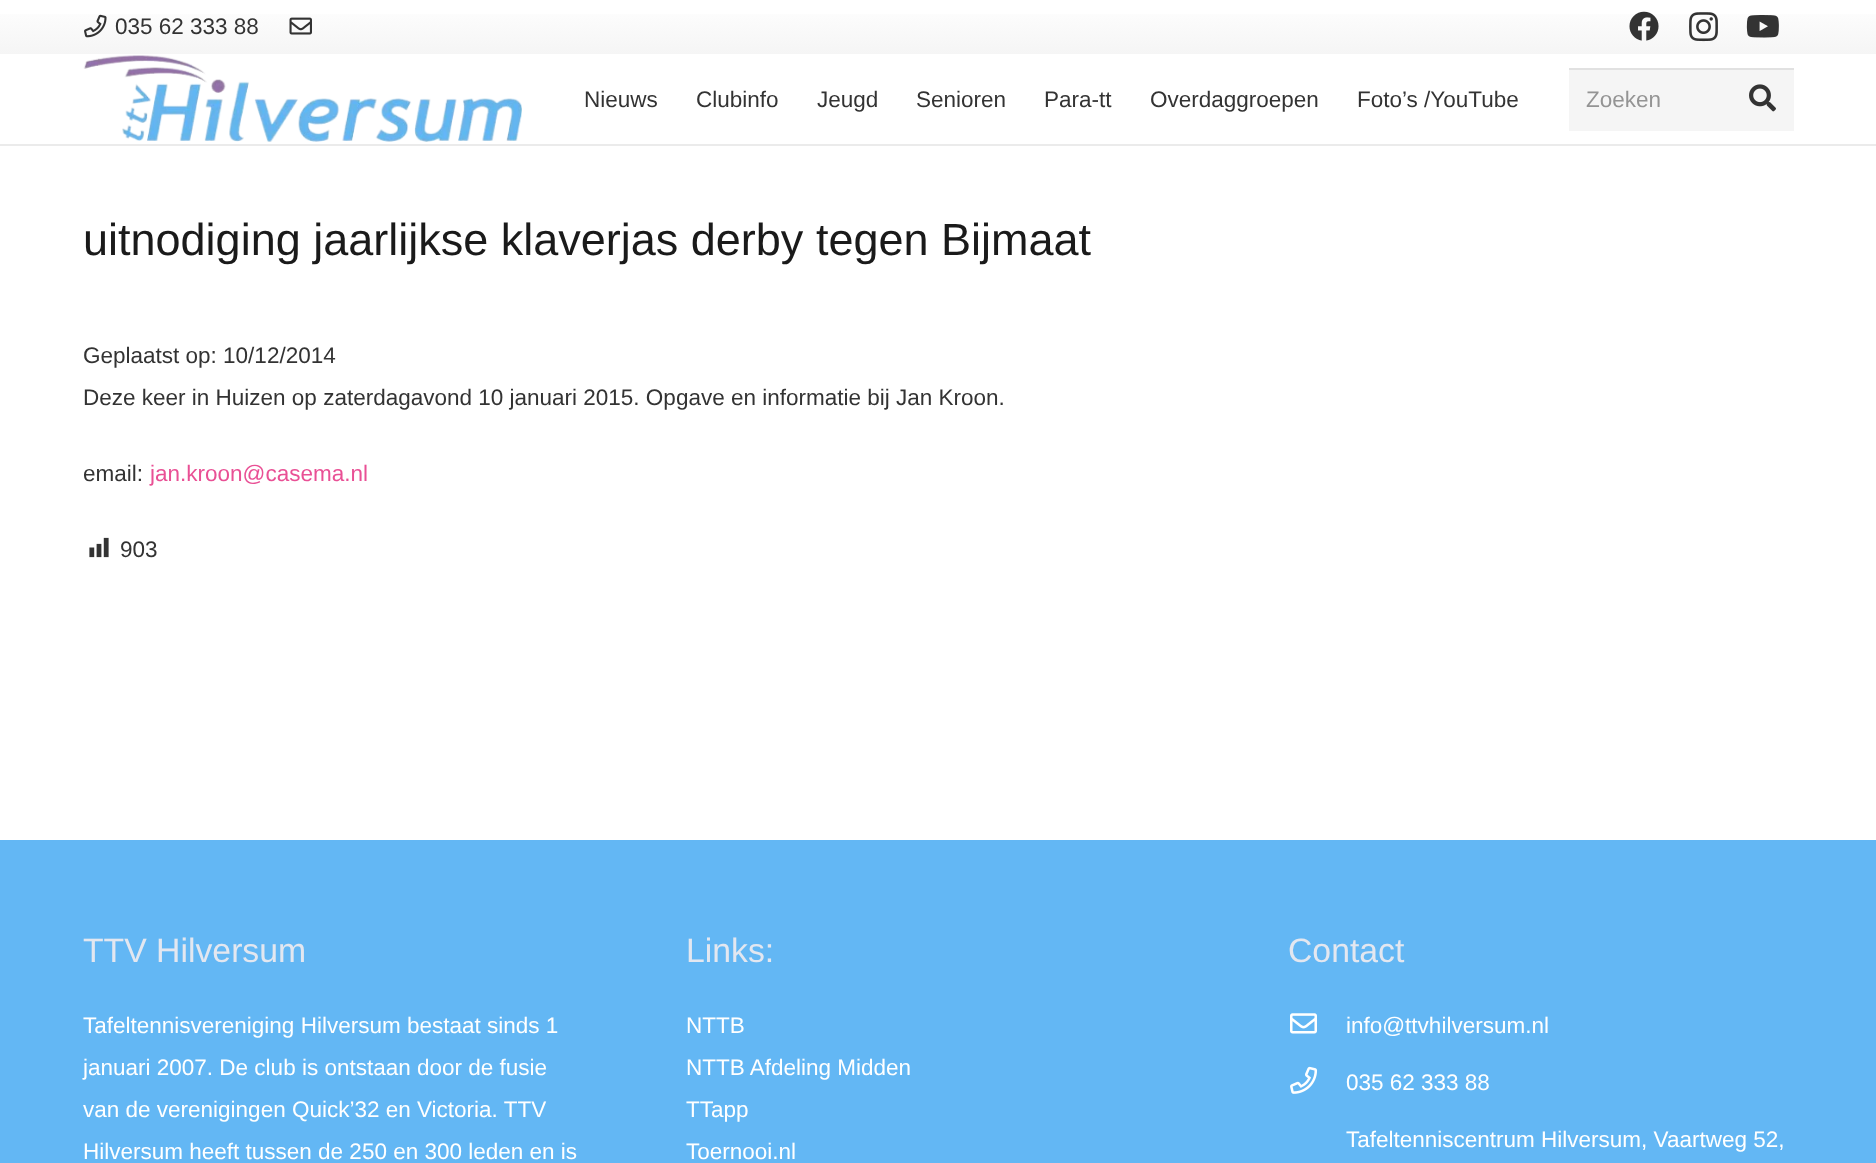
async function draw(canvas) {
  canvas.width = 1876
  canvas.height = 1163
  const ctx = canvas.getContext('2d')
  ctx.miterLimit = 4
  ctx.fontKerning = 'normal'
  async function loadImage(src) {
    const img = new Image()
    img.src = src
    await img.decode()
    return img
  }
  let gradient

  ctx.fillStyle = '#fff'
  ctx.fillRect(0, 0, 1876, 1163)
  gradient = ctx.createLinearGradient(938, 54, 938, 0)
  gradient.addColorStop(0, '#f5f5f5')
  gradient.addColorStop(1, '#fff')
  ctx.fillStyle = gradient
  ctx.fillRect(0, 14, 1876, 40)
  ctx.drawImage(await loadImage('image0.png'), 84, 14, 23, 24)
  ctx.font = '22.5px Liberation Sans'
  ctx.fillStyle = '#333'
  ctx.fillText('035 62 333 88', 115, 34)
  ctx.drawImage(await loadImage('image1.png'), 289, 17, 23, 18)
  ctx.drawImage(await loadImage('image2.png'), 1629, 11, 30, 30)
  ctx.drawImage(await loadImage('image3.png'), 1689, 12, 29, 30)
  ctx.drawImage(await loadImage('image4.png'), 1746, 15, 33, 23)
  ctx.fillStyle = '#ebebeb'
  ctx.beginPath()
  ctx.moveTo(0, 144)
  ctx.lineTo(0, 146)
  ctx.lineTo(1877, 146)
  ctx.lineTo(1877, 56)
  ctx.lineTo(1876, 56)
  ctx.lineTo(1876, 144)
  ctx.closePath()
  ctx.fill()
  ctx.drawImage(await loadImage('image5.png'), 83, 55, 439, 87)
  ctx.fillStyle = '#333'
  ctx.fillText('Nieuws', 584, 107)
  ctx.fillText('Clubinfo', 696, 107)
  ctx.fillText('Jeugd', 817, 107)
  ctx.fillText('Senioren', 916, 107)
  ctx.fillText('Para-tt', 1044, 107)
  ctx.fillText('Overdaggroepen', 1150, 107)
  ctx.fillText('Foto’s /YouTube', 1357, 107)
  ctx.fillStyle = '#f5f5f5'
  ctx.fillRect(1569, 70, 225, 61)
  ctx.fillStyle = '#e1e1e1'
  ctx.fillRect(1569, 68, 225, 2)
  ctx.fillStyle = '#949494'
  ctx.fillText('Zoeken', 1586, 107)
  ctx.drawImage(await loadImage('image6.png'), 1749, 84, 27, 28)
  ctx.font = '45px Liberation Sans'
  ctx.fillStyle = '#1a1a1a'
  ctx.fillText('uitnodiging jaarlijkse klaverjas derby tegen Bijmaat', 83, 255)
  ctx.font = '22.5px Liberation Sans'
  ctx.fillStyle = '#333'
  ctx.fillText('Geplaatst op: 10/12/2014', 83, 363)
  ctx.fillText('Deze keer in Huizen op zaterdagavond 10 januari 2015. Opgave en informatie bij Jan Kroon.', 83, 405)
  ctx.fillText('email:', 83, 481)
  ctx.fillStyle = '#e95095'
  ctx.fillText('jan.kroon@casema.nl', 150, 481)
  ctx.drawImage(await loadImage('image7.png'), 89, 537, 20, 21)
  ctx.fillStyle = '#333'
  ctx.fillText('903', 120, 557)
  ctx.fillStyle = '#63b7f4'
  ctx.fillRect(0, 840, 1876, 323)
  ctx.font = '33.75px Liberation Sans'
  ctx.fillStyle = '#e3e7f0'
  ctx.fillText('TTV Hilversum', 83, 962)
  ctx.font = '22.5px Liberation Sans'
  ctx.fillStyle = '#fff'
  ctx.fillText('Tafeltennisvereniging Hilversum bestaat sinds 1', 83, 1033)
  ctx.fillText('januari 2007. De club is ontstaan door de fusie', 83, 1075)
  ctx.fillText('van de verenigingen Quick’32 en Victoria. TTV', 83, 1117)
  ctx.fillText('Hilversum heeft tussen de 250 en 300 leden en is', 83, 1159)
  ctx.font = '33.75px Liberation Sans'
  ctx.fillStyle = '#e3e7f0'
  ctx.fillText('Links:', 686, 962)
  ctx.font = '22.5px Liberation Sans'
  ctx.fillStyle = '#fff'
  ctx.fillText('NTTB', 686, 1033)
  ctx.fillText('NTTB Afdeling Midden', 686, 1075)
  ctx.fillText('TTapp', 686, 1117)
  ctx.fillText('Toernooi.nl', 686, 1159)
  ctx.font = '33.75px Liberation Sans'
  ctx.fillStyle = '#e3e7f0'
  ctx.fillText('Contact', 1288, 962)
  ctx.drawImage(await loadImage('image8.png'), 1290, 1013, 27, 21)
  ctx.font = '22.5px Liberation Sans'
  ctx.fillStyle = '#fff'
  ctx.fillText('info@ttvhilversum.nl', 1346, 1033)
  ctx.drawImage(await loadImage('image9.png'), 1290, 1066, 28, 28)
  ctx.fillText('035 62 333 88', 1346, 1090)
  ctx.fillText('Tafeltenniscentrum Hilversum, Vaartweg 52,', 1346, 1147)
}

draw(document.querySelector('canvas'))
